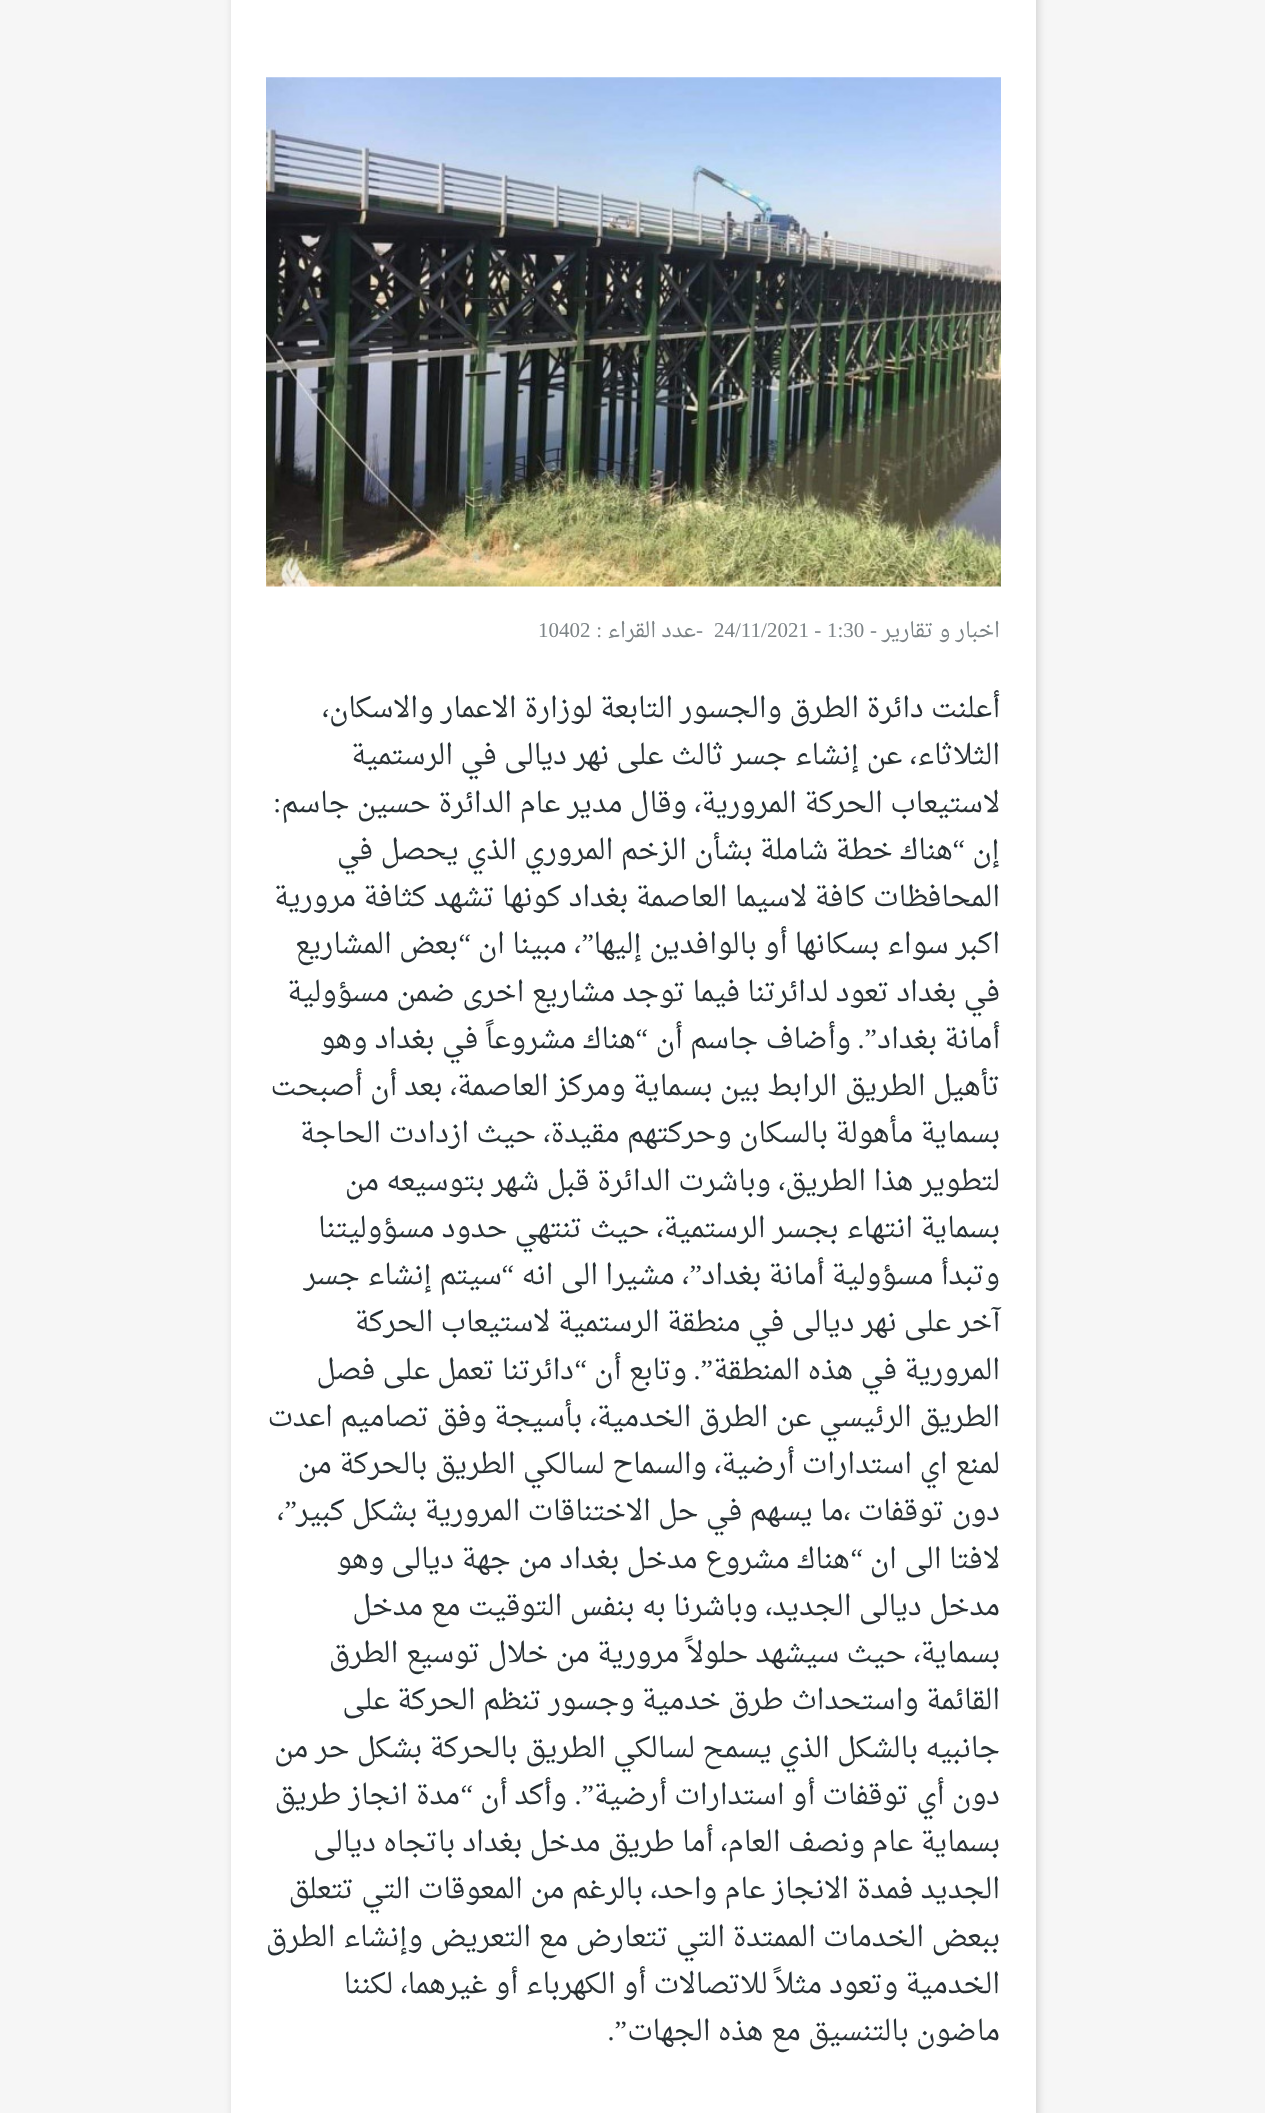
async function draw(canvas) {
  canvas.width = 1265
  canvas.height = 2113
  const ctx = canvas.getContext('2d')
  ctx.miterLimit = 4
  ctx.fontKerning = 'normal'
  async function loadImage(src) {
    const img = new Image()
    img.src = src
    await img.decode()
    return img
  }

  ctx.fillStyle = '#f6f6f6'
  ctx.fillRect(0, 0, 1265, 2113)
  ctx.fillStyle = '#00000026'
  ctx.filter = 'blur(4.5px)'
  ctx.beginPath()
  ctx.rect(233, -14, 805, 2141)
  ctx.fill()
  ctx.filter = 'none'
  ctx.fillStyle = '#fff'
  ctx.fillRect(231, 0, 805, 2113)
  ctx.drawImage(await loadImage('image0.png'), 266, 77, 735, 510)
  ctx.direction = 'rtl'
  ctx.font = '21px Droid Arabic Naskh'
  ctx.fillStyle = '#7c8386'
  ctx.fillText('اخبار و تقارير', 1000, 637)
  ctx.direction = 'ltr'
  ctx.font = '21px Liberation Serif'
  ctx.fillText('-', 870, 637)
  ctx.fillText('1:30', 827, 637)
  ctx.fillText('24/11/2021 -', 714, 637)
  ctx.fillText('-', 696, 637)
  ctx.direction = 'rtl'
  ctx.font = '21px Droid Arabic Naskh'
  ctx.fillText('عدد القراء', 696, 637)
  ctx.font = '21px Liberation Serif'
  ctx.fillText(':', 602, 637)
  ctx.direction = 'ltr'
  ctx.fillText('10402', 538, 637)
  ctx.direction = 'rtl'
  ctx.font = '28px Droid Arabic Naskh'
  ctx.fillStyle = '#293135'
  ctx.fillText('أعلنت دائرة الطرق والجسور التابعة لوزارة الاعمار والاسكان،', 1000, 717)
  ctx.fillText('الثلاثاء، عن إنشاء جسر ثالث على نهر ديالى في الرستمية', 1000, 764)
  ctx.fillText('لاستيعاب الحركة المرورية، وقال مدير عام الدائرة حسين جاسم', 1000, 812)
  ctx.font = '28px Liberation Serif'
  ctx.fillText(':', 281, 812)
  ctx.font = '28px Droid Arabic Naskh'
  ctx.fillText('إن', 1000, 859)
  ctx.font = '28px Liberation Serif'
  ctx.fillText('“', 965, 859)
  ctx.font = '28px Droid Arabic Naskh'
  ctx.fillText('هناك خطة شاملة بشأن الزخم المروري الذي يحصل في', 953, 859)
  ctx.fillText('المحافظات كافة لاسيما العاصمة بغداد كونها تشهد كثافة مرورية', 1000, 906)
  ctx.fillText('اكبر سواء بسكانها أو بالوافدين إليها', 1000, 953)
  ctx.font = '28px Liberation Serif'
  ctx.fillText('”', 594, 953)
  ctx.font = '28px Droid Arabic Naskh'
  ctx.fillText('، مبينا ان', 581, 953)
  ctx.font = '28px Liberation Serif'
  ctx.fillText('“', 471, 953)
  ctx.font = '28px Droid Arabic Naskh'
  ctx.fillText('بعض المشاريع', 458, 953)
  ctx.fillText('في بغداد تعود لدائرتنا فيما توجد مشاريع اخرى ضمن مسؤولية', 1000, 1001)
  ctx.fillText('أمانة بغداد', 1000, 1048)
  ctx.font = '28px Liberation Serif'
  ctx.fillText('”.', 877, 1048)
  ctx.font = '28px Droid Arabic Naskh'
  ctx.fillText('وأضاف جاسم أن', 851, 1048)
  ctx.font = '28px Liberation Serif'
  ctx.fillText('“', 648, 1048)
  ctx.font = '28px Droid Arabic Naskh'
  ctx.fillText('هناك مشروعاً في بغداد وهو', 636, 1048)
  ctx.fillText('تأهيل الطريق الرابط بين بسماية ومركز العاصمة، بعد أن أصبحت', 1000, 1095)
  ctx.fillText('بسماية مأهولة بالسكان وحركتهم مقيدة، حيث ازدادت الحاجة', 1000, 1142)
  ctx.fillText('لتطوير هذا الطريق، وباشرت الدائرة قبل شهر بتوسيعه من', 1000, 1190)
  ctx.fillText('بسماية انتهاء بجسر الرستمية، حيث تنتهي حدود مسؤوليتنا', 1000, 1237)
  ctx.fillText('وتبدأ مسؤولية أمانة بغداد', 1000, 1284)
  ctx.font = '28px Liberation Serif'
  ctx.fillText('”', 702, 1284)
  ctx.font = '28px Droid Arabic Naskh'
  ctx.fillText('، مشيرا الى انه', 689, 1284)
  ctx.font = '28px Liberation Serif'
  ctx.fillText('“', 514, 1284)
  ctx.font = '28px Droid Arabic Naskh'
  ctx.fillText('سيتم إنشاء جسر', 502, 1284)
  ctx.fillText('آخر على نهر ديالى في منطقة الرستمية لاستيعاب الحركة', 1000, 1331)
  ctx.fillText('المرورية في هذه المنطقة', 1000, 1379)
  ctx.font = '28px Liberation Serif'
  ctx.fillText('”.', 713, 1379)
  ctx.font = '28px Droid Arabic Naskh'
  ctx.fillText('وتابع أن', 687, 1379)
  ctx.font = '28px Liberation Serif'
  ctx.fillText('“', 587, 1379)
  ctx.font = '28px Droid Arabic Naskh'
  ctx.fillText('دائرتنا تعمل على فصل', 574, 1379)
  ctx.fillText('الطريق الرئيسي عن الطرق الخدمية، بأسيجة وفق تصاميم اعدت', 1000, 1426)
  ctx.fillText('لمنع اي استدارات أرضية، والسماح لسالكي الطريق بالحركة من', 1000, 1473)
  ctx.font = '28px Liberation Serif'
  ctx.fillText('”', 297, 1520)
  ctx.font = '28px Droid Arabic Naskh'
  ctx.fillText('دون توقفات ،ما يسهم في حل الاختناقات المرورية بشكل كبير', 1000, 1520)
  ctx.fillText('،', 284, 1520)
  ctx.fillText('لافتا الى ان', 1000, 1568)
  ctx.font = '28px Liberation Serif'
  ctx.fillText('“', 863, 1568)
  ctx.font = '28px Droid Arabic Naskh'
  ctx.fillText('هناك مشروع مدخل بغداد من جهة ديالى وهو', 850, 1568)
  ctx.fillText('مدخل ديالى الجديد، وباشرنا به بنفس التوقيت مع مدخل', 1000, 1615)
  ctx.fillText('بسماية، حيث سيشهد حلولاً مرورية من خلال توسيع الطرق', 1000, 1662)
  ctx.fillText('القائمة واستحداث طرق خدمية وجسور تنظم الحركة على', 1000, 1709)
  ctx.fillText('جانبيه بالشكل الذي يسمح لسالكي الطريق بالحركة بشكل حر من', 1000, 1757)
  ctx.fillText('دون أي توقفات أو استدارات أرضية', 1000, 1804)
  ctx.font = '28px Liberation Serif'
  ctx.fillText('”.', 594, 1804)
  ctx.font = '28px Droid Arabic Naskh'
  ctx.fillText('وأكد أن', 567, 1804)
  ctx.font = '28px Liberation Serif'
  ctx.fillText('“', 473, 1804)
  ctx.font = '28px Droid Arabic Naskh'
  ctx.fillText('مدة انجاز طريق', 460, 1804)
  ctx.fillText('بسماية عام ونصف العام، أما طريق مدخل بغداد باتجاه ديالى', 1000, 1851)
  ctx.fillText('الجديد فمدة الانجاز عام واحد، بالرغم من المعوقات التي تتعلق', 1000, 1898)
  ctx.fillText('ببعض الخدمات الممتدة التي تتعارض مع التعريض وإنشاء الطرق', 1000, 1946)
  ctx.fillText('الخدمية وتعود مثلاً للاتصالات أو الكهرباء أو غيرهما، لكننا', 1000, 1993)
  ctx.fillText('ماضون بالتنسيق مع هذه الجهات', 1000, 2040)
  ctx.font = '28px Liberation Serif'
  ctx.fillText('”.', 627, 2040)
}

draw(document.querySelector('canvas'))
